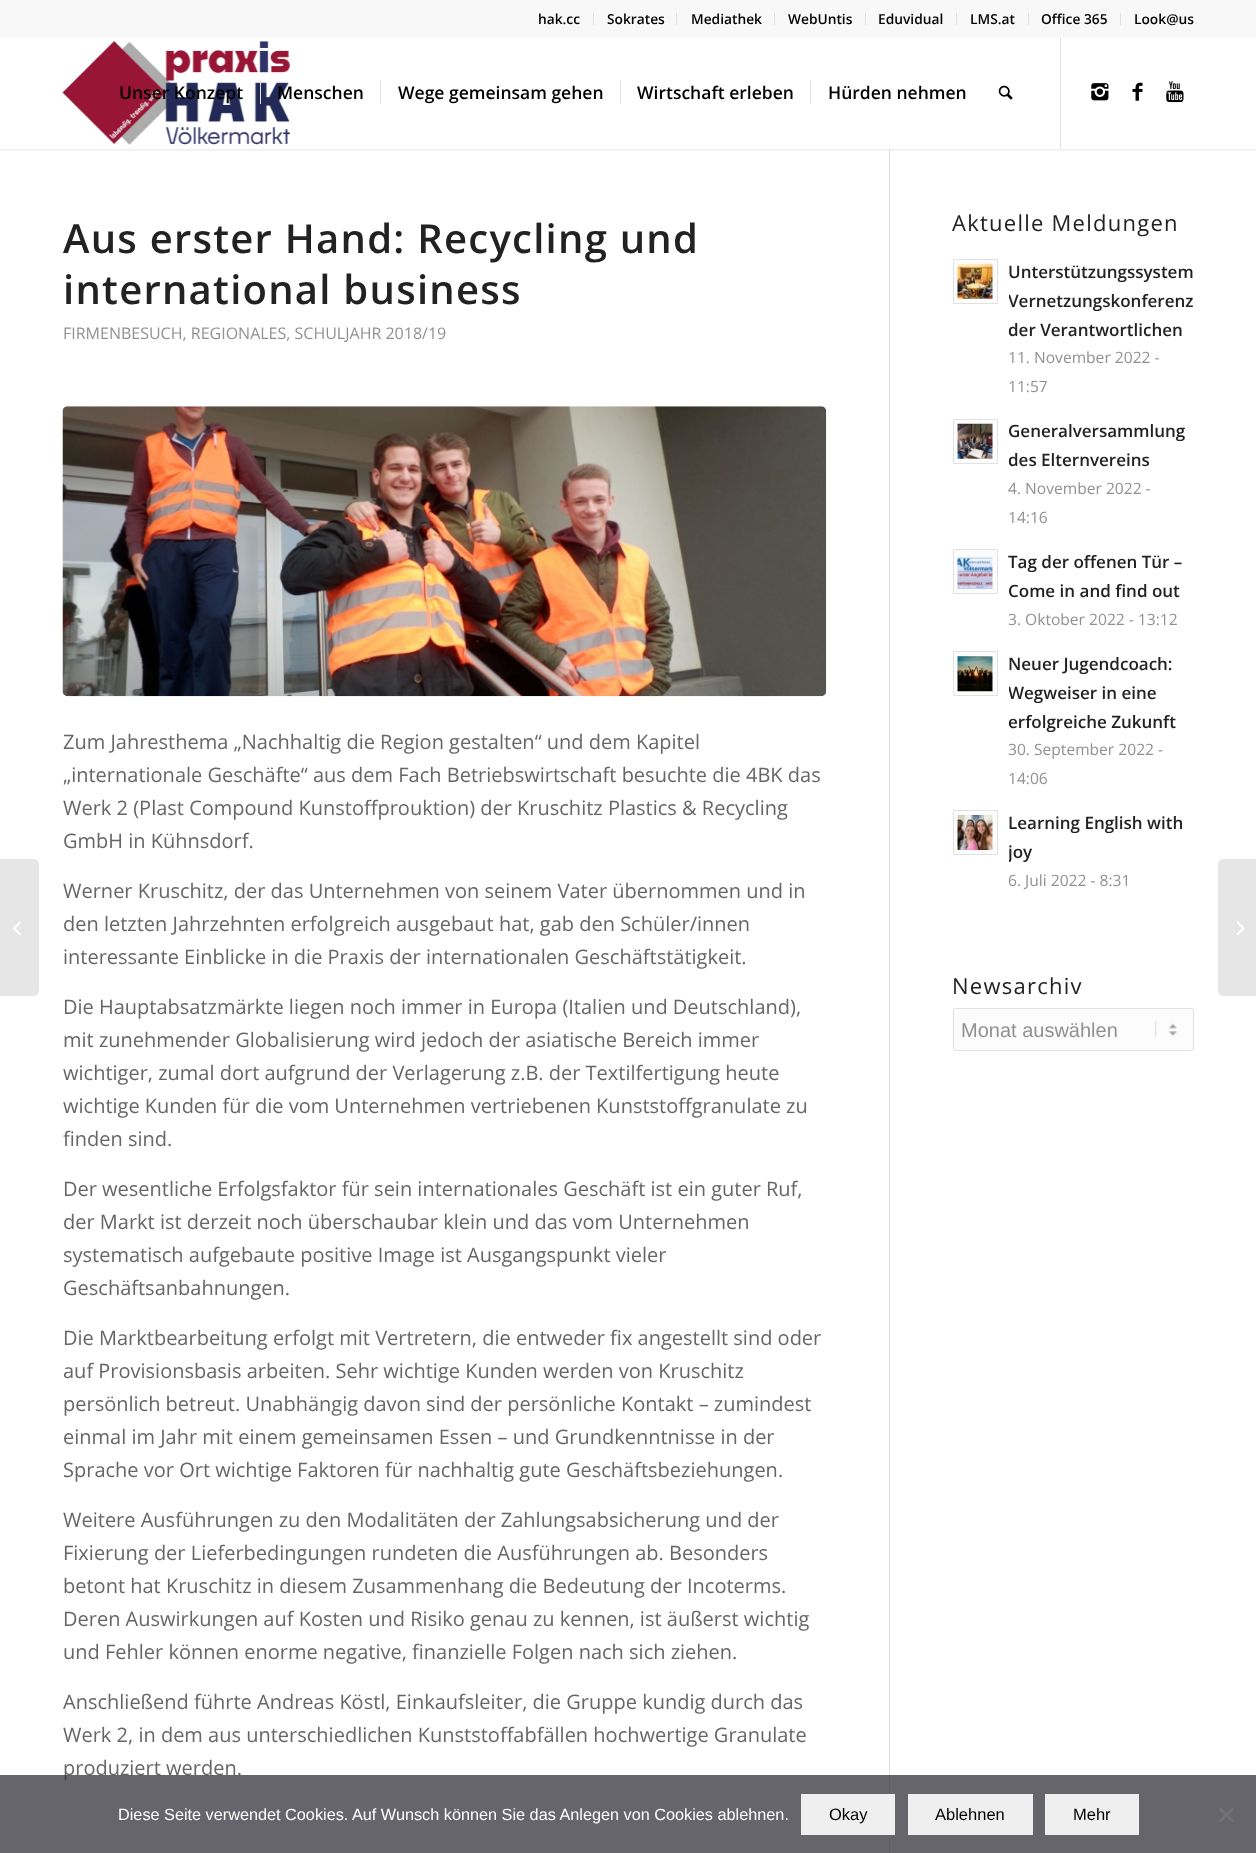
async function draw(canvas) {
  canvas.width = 1256
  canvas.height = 1853
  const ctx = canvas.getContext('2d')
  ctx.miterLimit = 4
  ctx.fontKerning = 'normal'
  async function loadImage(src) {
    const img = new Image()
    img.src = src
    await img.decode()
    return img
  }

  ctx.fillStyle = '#fff'
  ctx.fillRect(0, 0, 1256, 1853)
  ctx.fillStyle = '#e1e1e1'
  ctx.fillRect(889, 149, 1, 1704)
  ctx.fillStyle = '#0000001a'
  ctx.filter = 'blur(1px)'
  ctx.beginPath()
  ctx.rect(-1, -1, 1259, 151)
  ctx.fill()
  ctx.filter = 'none'
  ctx.fillStyle = '#fff'
  ctx.fillRect(0, 38, 1256, 111)
  ctx.fillStyle = '#e1e1e1'
  ctx.fillRect(1060, 36, 1, 113)
  ctx.fillStyle = '#f8f8f8'
  ctx.fillRect(0, 0, 1256, 38)
  ctx.fillStyle = '#e1e1e1'
  ctx.fillRect(593, 13, 1, 12)
  ctx.font = '600 13.75px Open Sans'
  ctx.fillStyle = '#000'
  ctx.fillText('hak.cc', 538, 24)
  ctx.fillStyle = '#e1e1e1'
  ctx.fillRect(676, 13, 1, 12)
  ctx.fillStyle = '#000'
  ctx.fillText('Sokrates', 607, 24)
  ctx.fillStyle = '#e1e1e1'
  ctx.fillRect(774, 13, 1, 12)
  ctx.fillStyle = '#000'
  ctx.fillText('Mediathek', 691, 24)
  ctx.fillStyle = '#e1e1e1'
  ctx.fillRect(865, 13, 1, 12)
  ctx.fillStyle = '#000'
  ctx.fillText('WebUntis', 788, 24)
  ctx.fillStyle = '#e1e1e1'
  ctx.fillRect(956, 13, 1, 12)
  ctx.fillStyle = '#000'
  ctx.fillText('Eduvidual', 878, 24)
  ctx.fillStyle = '#e1e1e1'
  ctx.fillRect(1028, 13, 1, 12)
  ctx.fillStyle = '#000'
  ctx.fillText('LMS.at', 970, 24)
  ctx.fillStyle = '#e1e1e1'
  ctx.fillRect(1120, 13, 1, 12)
  ctx.fillStyle = '#000'
  ctx.fillText('Office 365', 1041, 24)
  ctx.fillText('Look@us', 1134, 24)
  ctx.drawImage(await loadImage('image0.png'), 62, 41, 228, 104)
  ctx.font = '600 17.5px Open Sans'
  ctx.fillText('Unser Konzept', 119, 99)
  ctx.fillText('Menschen', 277, 99)
  ctx.fillStyle = '#e1e1e1'
  ctx.fillRect(260, 80, 1, 24)
  ctx.fillStyle = '#000'
  ctx.fillText('Wege gemeinsam gehen', 398, 99)
  ctx.fillStyle = '#e1e1e1'
  ctx.fillRect(380, 80, 1, 24)
  ctx.fillStyle = '#000'
  ctx.fillText('Wirtschaft erleben', 637, 99)
  ctx.fillStyle = '#e1e1e1'
  ctx.fillRect(620, 80, 1, 24)
  ctx.fillStyle = '#000'
  ctx.fillText('Hürden nehmen', 828, 99)
  ctx.fillStyle = '#e1e1e1'
  ctx.fillRect(810, 80, 1, 24)
  ctx.drawImage(await loadImage('image1.png'), 998, 85, 15, 15)
  ctx.drawImage(await loadImage('image2.png'), 1091, 83, 18, 18)
  ctx.drawImage(await loadImage('image3.png'), 1132, 82, 11, 19)
  ctx.drawImage(await loadImage('image4.png'), 1166, 81, 18, 22)
  ctx.fillStyle = '#e6e6e6'
  ctx.beginPath()
  ctx.roundRect(0, 859, 39, 137, [0, 5, 5, 0])
  ctx.fill()
  ctx.drawImage(await loadImage('image5.png'), 13, 921, 8, 14)
  ctx.letterSpacing = '1.25px'
  ctx.font = '600 40px Open Sans'
  ctx.fillStyle = '#222'
  ctx.fillText('Aus erster Hand: Recycling und', 63, 253)
  ctx.fillText('international business', 63, 304)
  ctx.letterSpacing = '0px'
  ctx.font = '16px Open Sans'
  ctx.fillStyle = '#919191'
  ctx.fillText('FIRMENBESUCH, REGIONALES, SCHULJAHR 2018/19', 63, 339)
  ctx.drawImage(await loadImage('image6.png'), 62, 406, 765, 291)
  ctx.font = '20px Open Sans'
  ctx.fillStyle = '#666'
  ctx.fillText('Zum Jahresthema „Nachhaltig die Region gestalten“ und dem Kapitel', 63, 749)
  ctx.fillText('„internationale Geschäfte“ aus dem Fach Betriebswirtschaft besuchte die 4BK das', 63, 782)
  ctx.fillText('Werk 2 (Plast Compound Kunstoffprouktion) der Kruschitz Plastics & Recycling', 63, 815)
  ctx.fillText('GmbH in Kühnsdorf.', 63, 848)
  ctx.fillText('Werner Kruschitz, der das Unternehmen von seinem Vater übernommen und in', 63, 898)
  ctx.fillText('den letzten Jahrzehnten erfolgreich ausgebaut hat, gab den Schüler/innen', 63, 931)
  ctx.fillText('interessante Einblicke in die Praxis der internationalen Geschäftstätigkeit.', 63, 964)
  ctx.fillText('Die Hauptabsatzmärkte liegen noch immer in Europa (Italien und Deutschland),', 63, 1014)
  ctx.fillText('mit zunehmender Globalisierung wird jedoch der asiatische Bereich immer', 63, 1047)
  ctx.fillText('wichtiger, zumal dort aufgrund der Verlagerung z.B. der Textilfertigung heute', 63, 1080)
  ctx.fillText('wichtige Kunden für die vom Unternehmen vertriebenen Kunststoffgranulate zu', 63, 1113)
  ctx.fillText('finden sind.', 63, 1146)
  ctx.fillText('Der wesentliche Erfolgsfaktor für sein internationales Geschäft ist ein guter Ruf,', 63, 1196)
  ctx.fillText('der Markt ist derzeit noch überschaubar klein und das vom Unternehmen', 63, 1229)
  ctx.fillText('systematisch aufgebaute positive Image ist Ausgangspunkt vieler', 63, 1262)
  ctx.fillText('Geschäftsanbahnungen.', 63, 1295)
  ctx.fillText('Die Marktbearbeitung erfolgt mit Vertretern, die entweder fix angestellt sind oder', 63, 1345)
  ctx.fillText('auf Provisionsbasis arbeiten. Sehr wichtige Kunden werden von Kruschitz', 63, 1378)
  ctx.fillText('persönlich betreut. Unabhängig davon sind der persönliche Kontakt – zumindest', 63, 1411)
  ctx.fillText('einmal im Jahr mit einem gemeinsamen Essen – und Grundkenntnisse in der', 63, 1444)
  ctx.fillText('Sprache vor Ort wichtige Faktoren für nachhaltig gute Geschäftsbeziehungen.', 63, 1477)
  ctx.fillText('Weitere Ausführungen zu den Modalitäten der Zahlungsabsicherung und der', 63, 1527)
  ctx.fillText('Fixierung der Lieferbedingungen rundeten die Ausführungen ab. Besonders', 63, 1560)
  ctx.fillText('betont hat Kruschitz in diesem Zusammenhang die Bedeutung der Incoterms.', 63, 1593)
  ctx.fillText('Deren Auswirkungen auf Kosten und Risiko genau zu kennen, ist äußerst wichtig', 63, 1626)
  ctx.fillText('und Fehler können enorme negative, finanzielle Folgen nach sich ziehen.', 63, 1659)
  ctx.fillText('Anschließend führte Andreas Köstl, Einkaufsleiter, die Gruppe kundig durch das', 63, 1709)
  ctx.fillText('Werk 2, in dem aus unterschiedlichen Kunststoffabfällen hochwertige Granulate', 63, 1742)
  ctx.fillText('produziert werden.', 63, 1775)
  ctx.letterSpacing = '1.25px'
  ctx.font = '22px Open Sans'
  ctx.fillStyle = '#222'
  ctx.fillText('Aktuelle Meldungen', 952, 231)
  ctx.fillStyle = '#fcfcfc'
  ctx.beginPath()
  ctx.rect(953.5, 259.5, 44, 44)
  ctx.fill()
  ctx.strokeStyle = '#e1e1e1'
  ctx.stroke()
  ctx.drawImage(await loadImage('image7.png'), 957, 263, 36, 36)
  ctx.letterSpacing = '0px'
  ctx.font = '600 17px Open Sans'
  ctx.fillStyle = '#222'
  ctx.fillText('Unterstützungssystem', 1008, 278)
  ctx.save()
  ctx.beginPath()
  ctx.rect(1009, 256, 185, 145)
  ctx.clip()
  ctx.fillText('Vernetzungskonferenz', 1008, 307)
  ctx.restore()
  ctx.fillText('der Verantwortlichen', 1008, 336)
  ctx.font = '15.6px Open Sans'
  ctx.fillStyle = '#919191'
  ctx.fillText('11. November 2022 -', 1008, 363)
  ctx.fillText('11:57', 1008, 392)
  ctx.fillStyle = '#fcfcfc'
  ctx.beginPath()
  ctx.rect(953.5, 419.5, 44, 44)
  ctx.fill()
  ctx.stroke()
  ctx.drawImage(await loadImage('image8.png'), 957, 423, 36, 36)
  ctx.font = '600 17px Open Sans'
  ctx.fillStyle = '#222'
  ctx.fillText('Generalversammlung', 1008, 437)
  ctx.fillText('des Elternvereins', 1008, 466)
  ctx.font = '15.6px Open Sans'
  ctx.fillStyle = '#919191'
  ctx.fillText('4. November 2022 -', 1008, 494)
  ctx.fillText('14:16', 1008, 523)
  ctx.fillStyle = '#fcfcfc'
  ctx.beginPath()
  ctx.rect(953.5, 549.5, 44, 44)
  ctx.fill()
  ctx.stroke()
  ctx.drawImage(await loadImage('image9.png'), 957, 556, 36, 33)
  ctx.font = '600 17px Open Sans'
  ctx.fillStyle = '#222'
  ctx.fillText('Tag der offenen Tür –', 1008, 568)
  ctx.fillText('Come in and find out', 1008, 597)
  ctx.font = '15.6px Open Sans'
  ctx.fillStyle = '#919191'
  ctx.fillText('3. Oktober 2022 - 13:12', 1008, 625)
  ctx.fillStyle = '#fcfcfc'
  ctx.beginPath()
  ctx.rect(953.5, 651.5, 44, 44)
  ctx.fill()
  ctx.stroke()
  ctx.drawImage(await loadImage('image10.png'), 957, 656, 36, 36)
  ctx.font = '600 17px Open Sans'
  ctx.fillStyle = '#222'
  ctx.fillText('Neuer Jugendcoach:', 1008, 670)
  ctx.save()
  ctx.beginPath()
  ctx.rect(1009, 649, 185, 144)
  ctx.clip()
  ctx.fillText('Wegweiser in eine', 1008, 699)
  ctx.restore()
  ctx.fillText('erfolgreiche Zukunft', 1008, 728)
  ctx.font = '15.6px Open Sans'
  ctx.fillStyle = '#919191'
  ctx.fillText('30. September 2022 -', 1008, 755)
  ctx.fillText('14:06', 1008, 784)
  ctx.fillStyle = '#fcfcfc'
  ctx.beginPath()
  ctx.rect(953.5, 810.5, 44, 44)
  ctx.fill()
  ctx.stroke()
  ctx.drawImage(await loadImage('image11.png'), 957, 815, 36, 35)
  ctx.font = '600 17px Open Sans'
  ctx.fillStyle = '#222'
  ctx.fillText('Learning English with', 1008, 829)
  ctx.save()
  ctx.beginPath()
  ctx.rect(1009, 808, 185, 87)
  ctx.clip()
  ctx.fillText('joy', 1008, 858)
  ctx.restore()
  ctx.font = '15.6px Open Sans'
  ctx.fillStyle = '#919191'
  ctx.fillText('6. Juli 2022 - 8:31', 1008, 886)
  ctx.letterSpacing = '1.25px'
  ctx.font = '22px Open Sans'
  ctx.fillStyle = '#222'
  ctx.fillText('Newsarchiv', 952, 994)
  ctx.fillStyle = '#fcfcfc'
  ctx.beginPath()
  ctx.roundRect(953, 1008, 241, 43, 2.5)
  ctx.fill()
  ctx.drawImage(await loadImage('image12.png'), 1155, 1021, 22, 17)
  ctx.beginPath()
  ctx.roundRect(953.5, 1008.5, 240, 42, 2)
  ctx.stroke()
  ctx.letterSpacing = '0px'
  ctx.font = '20px Liberation Sans'
  ctx.fillStyle = '#919191'
  ctx.fillText('Monat auswählen', 961, 1037)
  ctx.fillStyle = '#e6e6e6'
  ctx.beginPath()
  ctx.roundRect(1218, 859, 38, 137, [5, 0, 0, 5])
  ctx.fill()
  ctx.drawImage(await loadImage('image13.png'), 1236, 921, 9, 14)
  ctx.fillStyle = '#32323abf'
  ctx.fillRect(0, 1775, 1256, 78)
  ctx.font = '16.25px Liberation Sans'
  ctx.fillStyle = '#fff'
  ctx.fillText('Diese Seite verwendet Cookies. Auf Wunsch können Sie das Anlegen von Cookies ablehnen.', 118, 1820)
  ctx.fillStyle = '#efefef'
  ctx.fillRect(801, 1794, 94, 41)
  ctx.font = '16.5px Liberation Sans'
  ctx.fillStyle = '#000'
  ctx.fillText('Okay', 829, 1820)
  ctx.fillStyle = '#efefef'
  ctx.fillRect(908, 1794, 125, 41)
  ctx.fillStyle = '#000'
  ctx.fillText('Ablehnen', 935, 1820)
  ctx.fillStyle = '#efefef'
  ctx.fillRect(1045, 1794, 94, 41)
  ctx.fillStyle = '#000'
  ctx.fillText('Mehr', 1073, 1820)
  ctx.fillStyle = '#737376'
  ctx.beginPath()
  ctx.moveTo(1232, 1807.5)
  ctx.lineTo(1234, 1809.5)
  ctx.lineTo(1220.5, 1822.5)
  ctx.lineTo(1218.5, 1820.5)
  ctx.closePath()
  ctx.fill()
  ctx.beginPath()
  ctx.moveTo(1218.5, 1809.5)
  ctx.lineTo(1220.5, 1807.5)
  ctx.lineTo(1234, 1820.5)
  ctx.lineTo(1232, 1822.5)
  ctx.closePath()
  ctx.fill()
}

draw(document.querySelector('canvas'))
